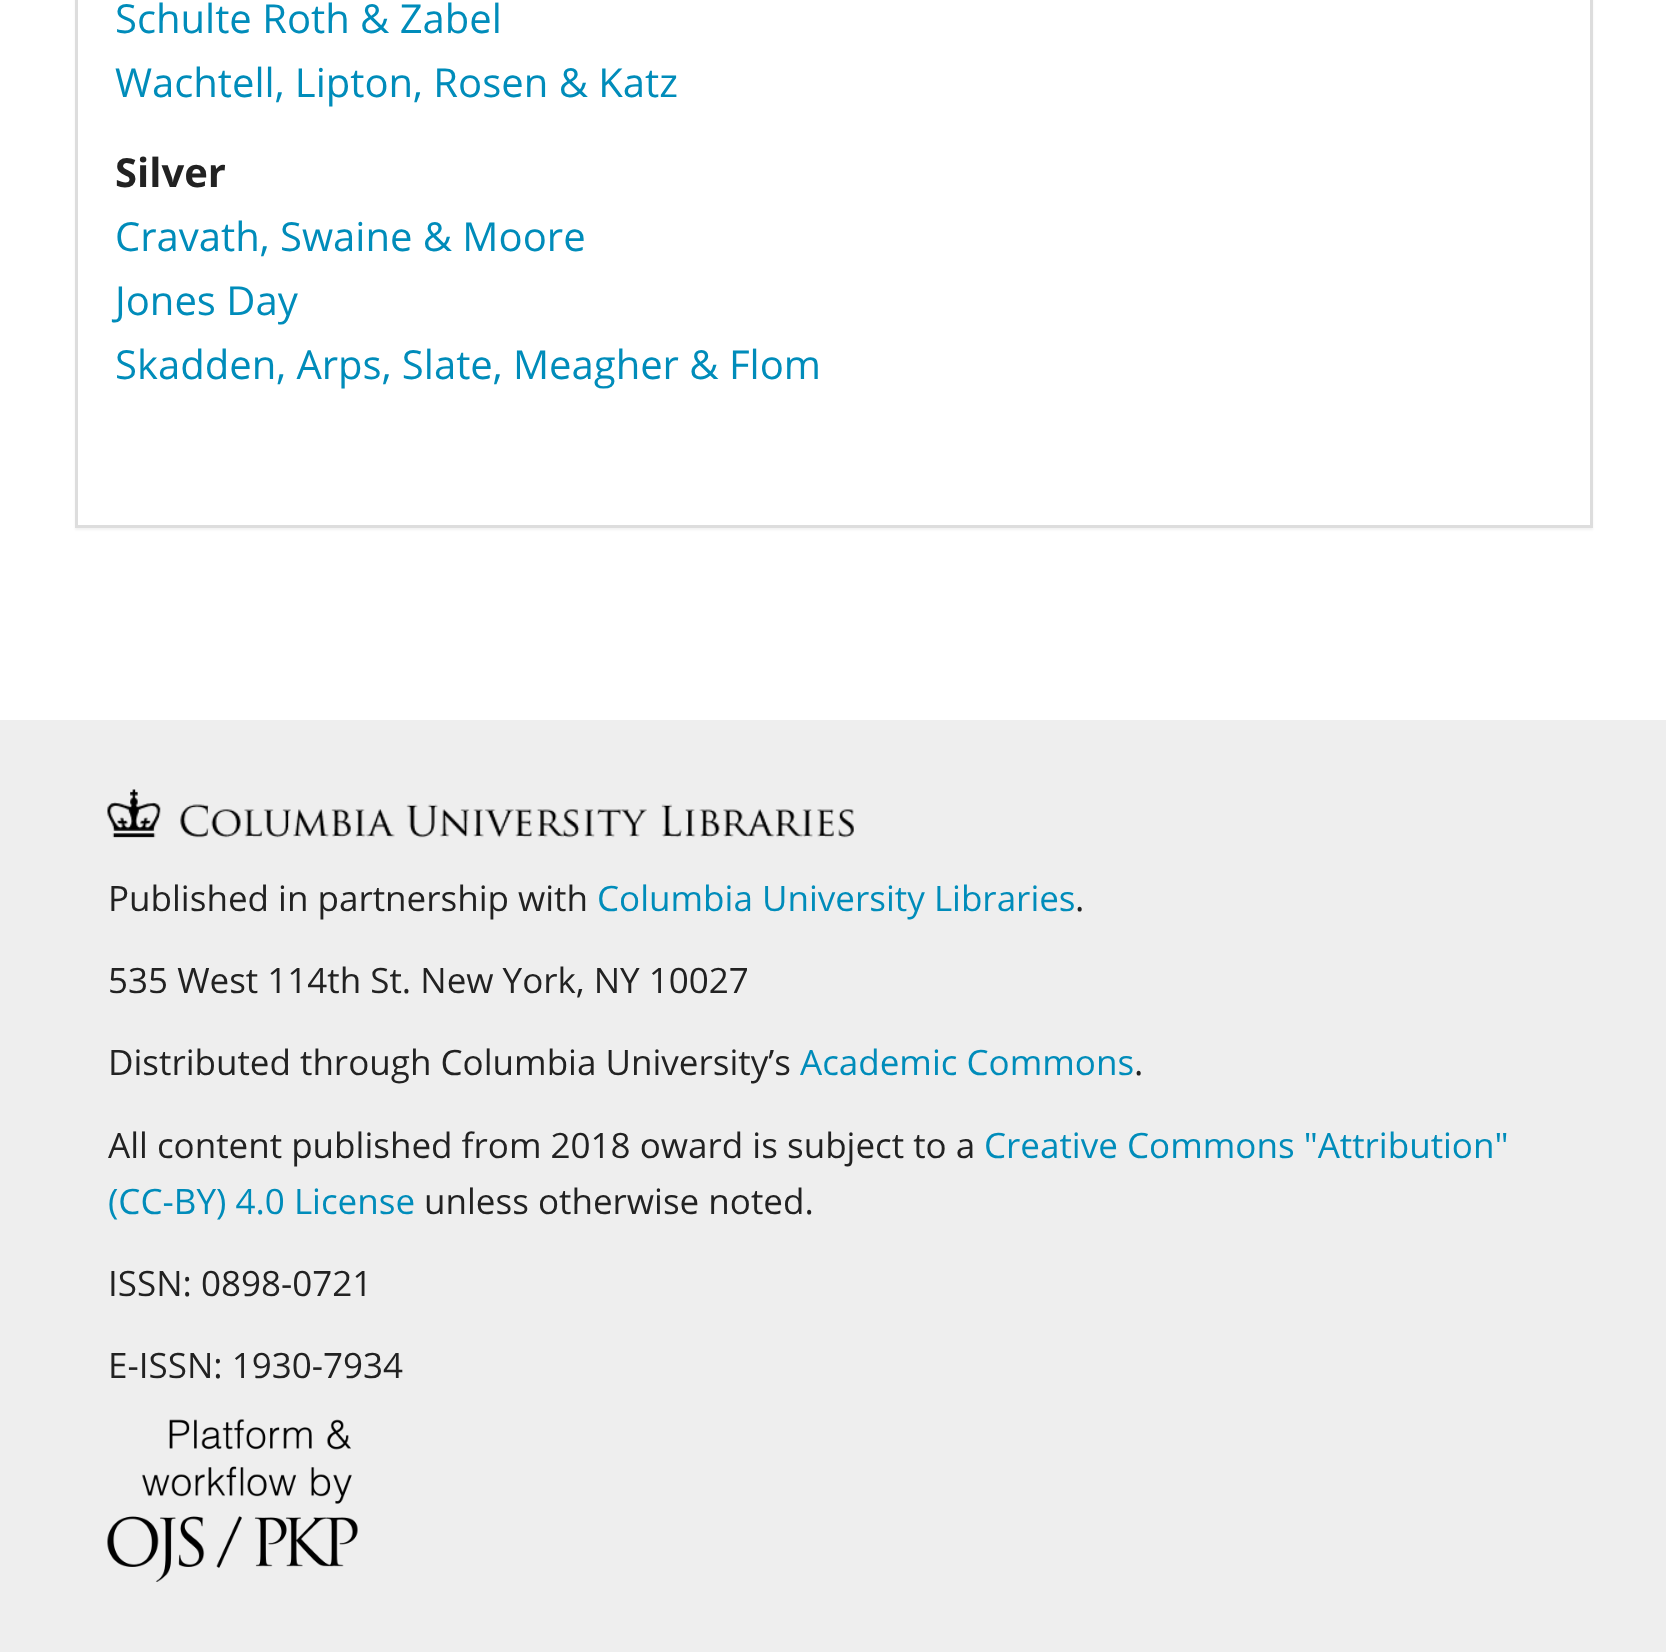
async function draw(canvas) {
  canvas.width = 1666
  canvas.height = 1652
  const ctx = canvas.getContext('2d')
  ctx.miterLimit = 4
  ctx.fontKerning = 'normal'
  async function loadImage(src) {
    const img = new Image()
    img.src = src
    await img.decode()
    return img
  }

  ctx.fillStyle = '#fff'
  ctx.fillRect(0, 0, 1666, 1652)
  ctx.fillStyle = '#0000000d'
  ctx.filter = 'blur(1px)'
  ctx.beginPath()
  ctx.rect(75, -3, 1518, 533)
  ctx.fill()
  ctx.filter = 'none'
  ctx.fillStyle = '#fff'
  ctx.beginPath()
  ctx.rect(76.5, -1.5, 1515, 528)
  ctx.fill()
  ctx.strokeStyle = '#ddd'
  ctx.lineWidth = 3
  ctx.stroke()
  ctx.font = '40px Open Sans'
  ctx.fillStyle = '#008cba'
  ctx.fillText('Schulte Roth & Zabel', 115, 33)
  ctx.fillText('Wachtell, Lipton, Rosen & Katz', 115, 97)
  ctx.font = 'bold 40px Open Sans'
  ctx.fillStyle = '#222'
  ctx.fillText('Silver', 115, 187)
  ctx.font = '40px Open Sans'
  ctx.fillStyle = '#008cba'
  ctx.fillText('Cravath, Swaine & Moore', 115, 251)
  ctx.fillText('Jones Day', 115, 315)
  ctx.fillText('Skadden, Arps, Slate, Meagher & Flom', 115, 379)
  ctx.fillStyle = '#eee'
  ctx.fillRect(0, 720, 1666, 932)
  ctx.drawImage(await loadImage('image0.png'), 107, 789, 747, 49)
  ctx.font = '35px Open Sans'
  ctx.fillStyle = '#222'
  ctx.fillText('Published in partnership with', 108, 911)
  ctx.fillStyle = '#008cba'
  ctx.fillText('Columbia University Libraries', 597, 911)
  ctx.fillStyle = '#222'
  ctx.fillText('.', 1075, 911)
  ctx.fillText('535 West 114th St. New York, NY 10027', 108, 993)
  ctx.fillText('Distributed through Columbia University’s', 108, 1075)
  ctx.fillStyle = '#008cba'
  ctx.fillText('Academic Commons', 800, 1075)
  ctx.fillStyle = '#222'
  ctx.fillText('.', 1134, 1075)
  ctx.fillText('All content published from 2018 oward is subject to a', 108, 1158)
  ctx.fillStyle = '#008cba'
  ctx.fillText('Creative Commons "Attribution"', 984, 1158)
  ctx.fillText('(CC-BY) 4.0 License', 108, 1214)
  ctx.fillStyle = '#222'
  ctx.fillText('unless otherwise noted.', 424, 1214)
  ctx.fillText('ISSN: 0898-0721', 108, 1296)
  ctx.fillText('E-ISSN: 1930-7934', 108, 1378)
  ctx.drawImage(await loadImage('image1.png'), 107, 1419, 251, 163)
}

draw(document.querySelector('canvas'))
